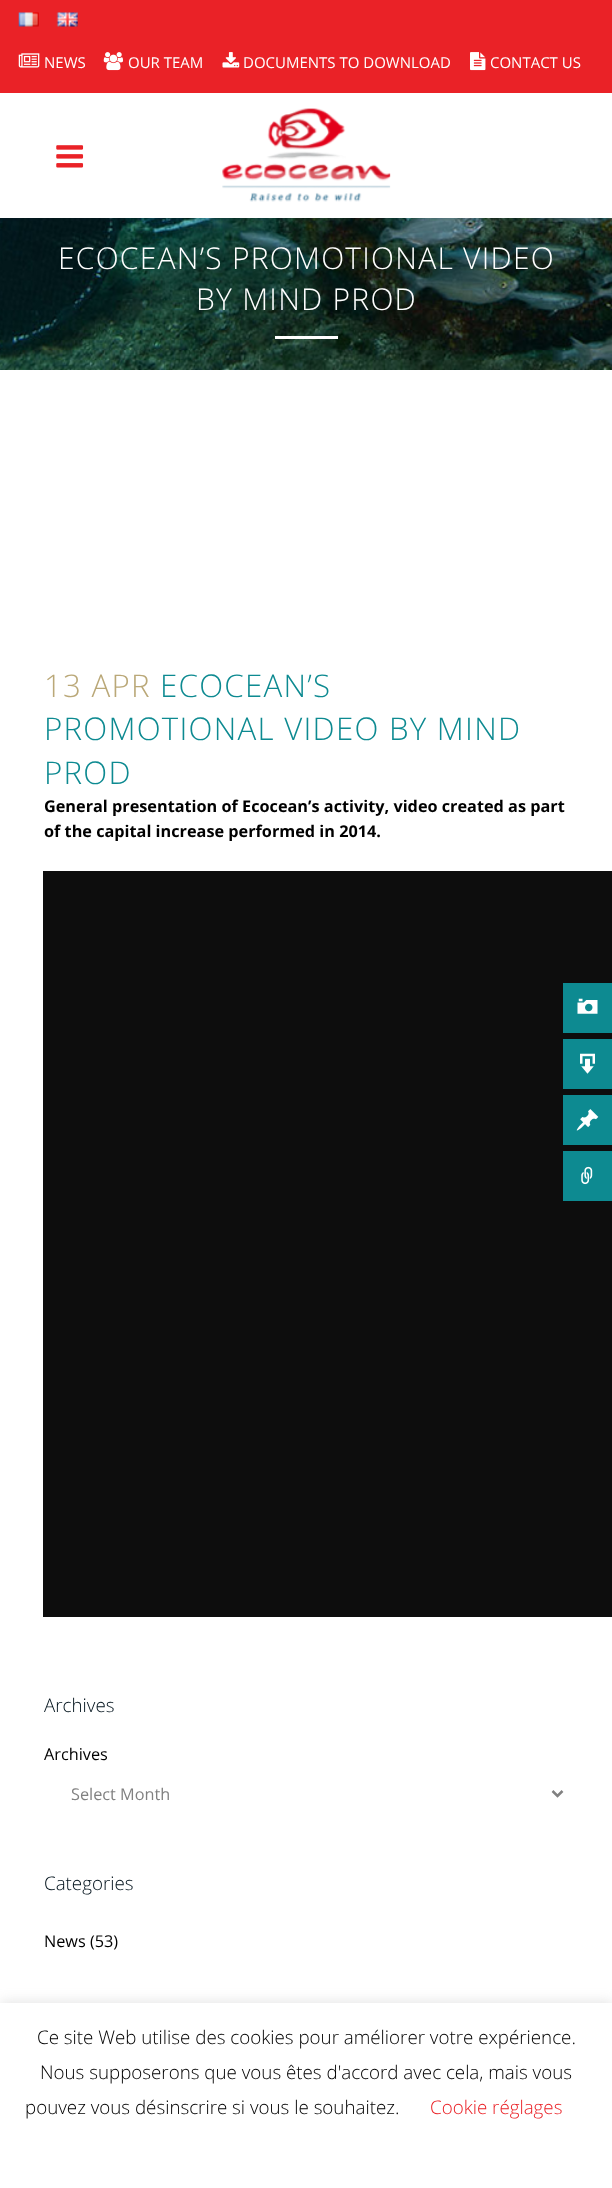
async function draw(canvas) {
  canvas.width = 612
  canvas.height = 2188
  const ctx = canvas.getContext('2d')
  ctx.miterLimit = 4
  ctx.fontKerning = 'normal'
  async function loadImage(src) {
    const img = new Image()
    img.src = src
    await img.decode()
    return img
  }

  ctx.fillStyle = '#fff'
  ctx.fillRect(0, 0, 612, 2188)
  ctx.fillStyle = '#ea2227'
  ctx.fillRect(0, 0, 612, 93)
  ctx.drawImage(await loadImage('image0.png'), 18, 12, 21, 15)
  ctx.drawImage(await loadImage('image1.png'), 56, 12, 22, 15)
  ctx.drawImage(await loadImage('image2.png'), 18, 53, 22, 15)
  ctx.font = '15px Open Sans'
  ctx.fillStyle = '#fff'
  ctx.fillText('NEWS', 44, 68)
  ctx.drawImage(await loadImage('image3.png'), 103, 52, 20, 19)
  ctx.fillText('OUR TEAM', 128, 68)
  ctx.drawImage(await loadImage('image4.png'), 222, 52, 18, 16)
  ctx.fillText('DOCUMENTS TO DOWNLOAD', 243, 68)
  ctx.drawImage(await loadImage('image5.png'), 470, 52, 16, 19)
  ctx.fillText('CONTACT US', 490, 68)
  ctx.drawImage(await loadImage('image6.png'), 56, 145, 28, 23)
  ctx.drawImage(await loadImage('image7.png'), 222, 108, 169, 94)
  ctx.drawImage(await loadImage('image8.png'), 0, 218, 612, 152)
  ctx.letterSpacing = '1.25px'
  ctx.font = '300 30px Open Sans'
  ctx.fillText('ECOCEAN’S PROMOTIONAL VIDEO', 58, 269)
  ctx.fillText('BY MIND PROD', 196, 310)
  ctx.fillRect(275, 336, 63, 3)
  ctx.font = '300 31.25px Open Sans'
  ctx.fillStyle = '#baa878'
  ctx.fillText('13 APR', 44, 697)
  ctx.fillStyle = '#0d8a91'
  ctx.fillText('ECOCEAN’S', 160, 697)
  ctx.fillText('PROMOTIONAL VIDEO BY MIND', 44, 740)
  ctx.fillText('PROD', 44, 784)
  ctx.letterSpacing = '0px'
  ctx.font = 'bold 16.25px Open Sans'
  ctx.fillStyle = '#000'
  ctx.fillText('General presentation of Ecocean’s activity, video created as part', 44, 812)
  ctx.fillText('of the capital increase performed in 2014.', 44, 837)
  ctx.fillStyle = '#0d0d0d'
  ctx.fillRect(43, 871, 569, 746)
  ctx.font = '300 18.75px Open Sans'
  ctx.fillStyle = '#00111b'
  ctx.fillText('Archives', 44, 1712)
  ctx.font = '16.25px Open Sans'
  ctx.fillStyle = '#000'
  ctx.fillText('Archives', 44, 1760)
  ctx.beginPath()
  ctx.moveTo(552.5, 1791)
  ctx.lineTo(557.5, 1796)
  ctx.lineTo(562.5, 1791)
  ctx.strokeStyle = '#818181'
  ctx.lineWidth = 2.5
  ctx.stroke()
  ctx.fillStyle = '#818181'
  ctx.fillText('Select Month', 71, 1800)
  ctx.font = '300 18.75px Open Sans'
  ctx.fillStyle = '#00111b'
  ctx.fillText('Categories', 44, 1890)
  ctx.font = '16.25px Open Sans'
  ctx.fillStyle = '#000'
  ctx.fillText('News (53)', 44, 1947)
  ctx.fillStyle = '#0d8a91'
  ctx.fillRect(563, 983, 49, 50)
  ctx.drawImage(await loadImage('image9.png'), 577, 998, 21, 16)
  ctx.fillRect(563, 1039, 49, 50)
  ctx.drawImage(await loadImage('image10.png'), 580, 1053, 15, 21)
  ctx.fillRect(563, 1095, 49, 50)
  ctx.drawImage(await loadImage('image11.png'), 576, 1109, 23, 22)
  ctx.fillRect(563, 1151, 49, 50)
  ctx.drawImage(await loadImage('image12.png'), 581, 1166, 12, 19)
  ctx.fillStyle = '#acabab4d'
  ctx.filter = 'blur(6px)'
  ctx.beginPath()
  ctx.rect(0, 2001, 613, 187)
  ctx.fill()
  ctx.filter = 'none'
  ctx.fillStyle = '#fff'
  ctx.fillRect(0, 2003, 612, 185)
  ctx.font = '300 18.75px Open Sans'
  ctx.fillStyle = '#000'
  ctx.fillText('Ce site Web utilise des cookies pour améliorer votre expérience.', 37, 2044)
  ctx.fillText('Nous supposerons que vous êtes d\'accord avec cela, mais vous', 40, 2079)
  ctx.fillText('pouvez vous désinscrire si vous le souhaitez.', 25, 2114)
  ctx.fillStyle = '#ea2227'
  ctx.fillText('Cookie réglages', 430, 2114)
}

draw(document.querySelector('canvas'))
